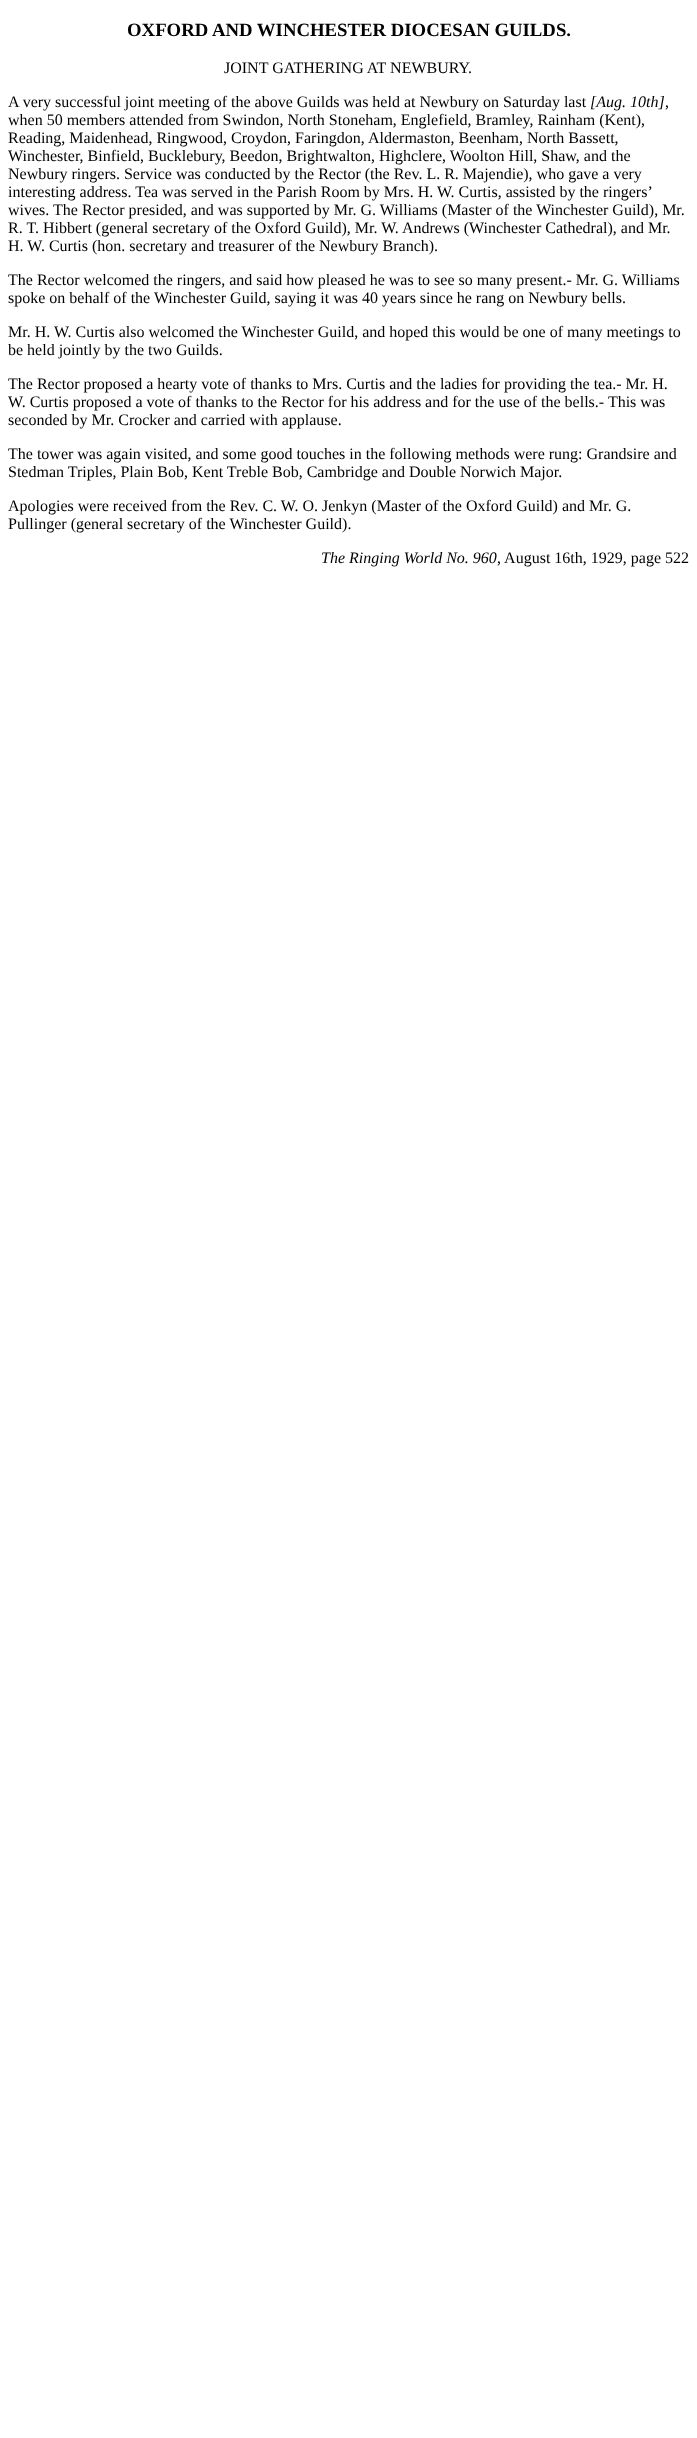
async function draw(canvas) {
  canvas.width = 697
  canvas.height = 2438
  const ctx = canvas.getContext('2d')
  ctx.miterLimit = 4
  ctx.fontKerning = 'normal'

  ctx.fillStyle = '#fff'
  ctx.fillRect(0, 0, 697, 2438)
  ctx.font = 'bold 18.75px Liberation Serif'
  ctx.fillStyle = '#000'
  ctx.fillText('OXFORD AND WINCHESTER DIOCESAN GUILDS.', 127, 36)
  ctx.font = '16px Liberation Serif'
  ctx.fillText('JOINT GATHERING AT NEWBURY.', 224, 73)
  ctx.fillText('A very successful joint meeting of the above Guilds was held at Newbury on Saturday last', 8, 107)
  ctx.font = 'italic 16px Liberation Serif'
  ctx.fillText('[Aug. 10th]', 590, 107)
  ctx.font = '16px Liberation Serif'
  ctx.fillText(',', 665, 107)
  ctx.fillText('when 50 members attended from Swindon, North Stoneham, Englefield, Bramley, Rainham (Kent),', 8, 125)
  ctx.fillText('Reading, Maidenhead, Ringwood, Croydon, Faringdon, Aldermaston, Beenham, North Bassett,', 8, 143)
  ctx.fillText('Winchester, Binfield, Bucklebury, Beedon, Brightwalton, Highclere, Woolton Hill, Shaw, and the', 8, 161)
  ctx.fillText('Newbury ringers. Service was conducted by the Rector (the Rev. L. R. Majendie), who gave a very', 8, 179)
  ctx.fillText('interesting address. Tea was served in the Parish Room by Mrs. H. W. Curtis, assisted by the ringers’', 8, 197)
  ctx.fillText('wives. The Rector presided, and was supported by Mr. G. Williams (Master of the Winchester Guild), Mr.', 8, 215)
  ctx.fillText('R. T. Hibbert (general secretary of the Oxford Guild), Mr. W. Andrews (Winchester Cathedral), and Mr.', 8, 233)
  ctx.fillText('H. W. Curtis (hon. secretary and treasurer of the Newbury Branch).', 8, 251)
  ctx.fillText('The Rector welcomed the ringers, and said how pleased he was to see so many present.- Mr. G. Williams', 8, 285)
  ctx.fillText('spoke on behalf of the Winchester Guild, saying it was 40 years since he rang on Newbury bells.', 8, 303)
  ctx.fillText('Mr. H. W. Curtis also welcomed the Winchester Guild, and hoped this would be one of many meetings to', 8, 337)
  ctx.fillText('be held jointly by the two Guilds.', 8, 355)
  ctx.fillText('The Rector proposed a hearty vote of thanks to Mrs. Curtis and the ladies for providing the tea.- Mr. H.', 8, 389)
  ctx.fillText('W. Curtis proposed a vote of thanks to the Rector for his address and for the use of the bells.- This was', 8, 407)
  ctx.fillText('seconded by Mr. Crocker and carried with applause.', 8, 425)
  ctx.fillText('The tower was again visited, and some good touches in the following methods were rung: Grandsire and', 8, 459)
  ctx.fillText('Stedman Triples, Plain Bob, Kent Treble Bob, Cambridge and Double Norwich Major.', 8, 477)
  ctx.fillText('Apologies were received from the Rev. C. W. O. Jenkyn (Master of the Oxford Guild) and Mr. G.', 8, 511)
  ctx.fillText('Pullinger (general secretary of the Winchester Guild).', 8, 529)
  ctx.font = 'italic 16px Liberation Serif'
  ctx.fillText('The Ringing World No. 960', 321, 563)
  ctx.font = '16px Liberation Serif'
  ctx.fillText(', August 16th, 1929, page 522', 497, 563)
}

draw(document.querySelector('canvas'))
